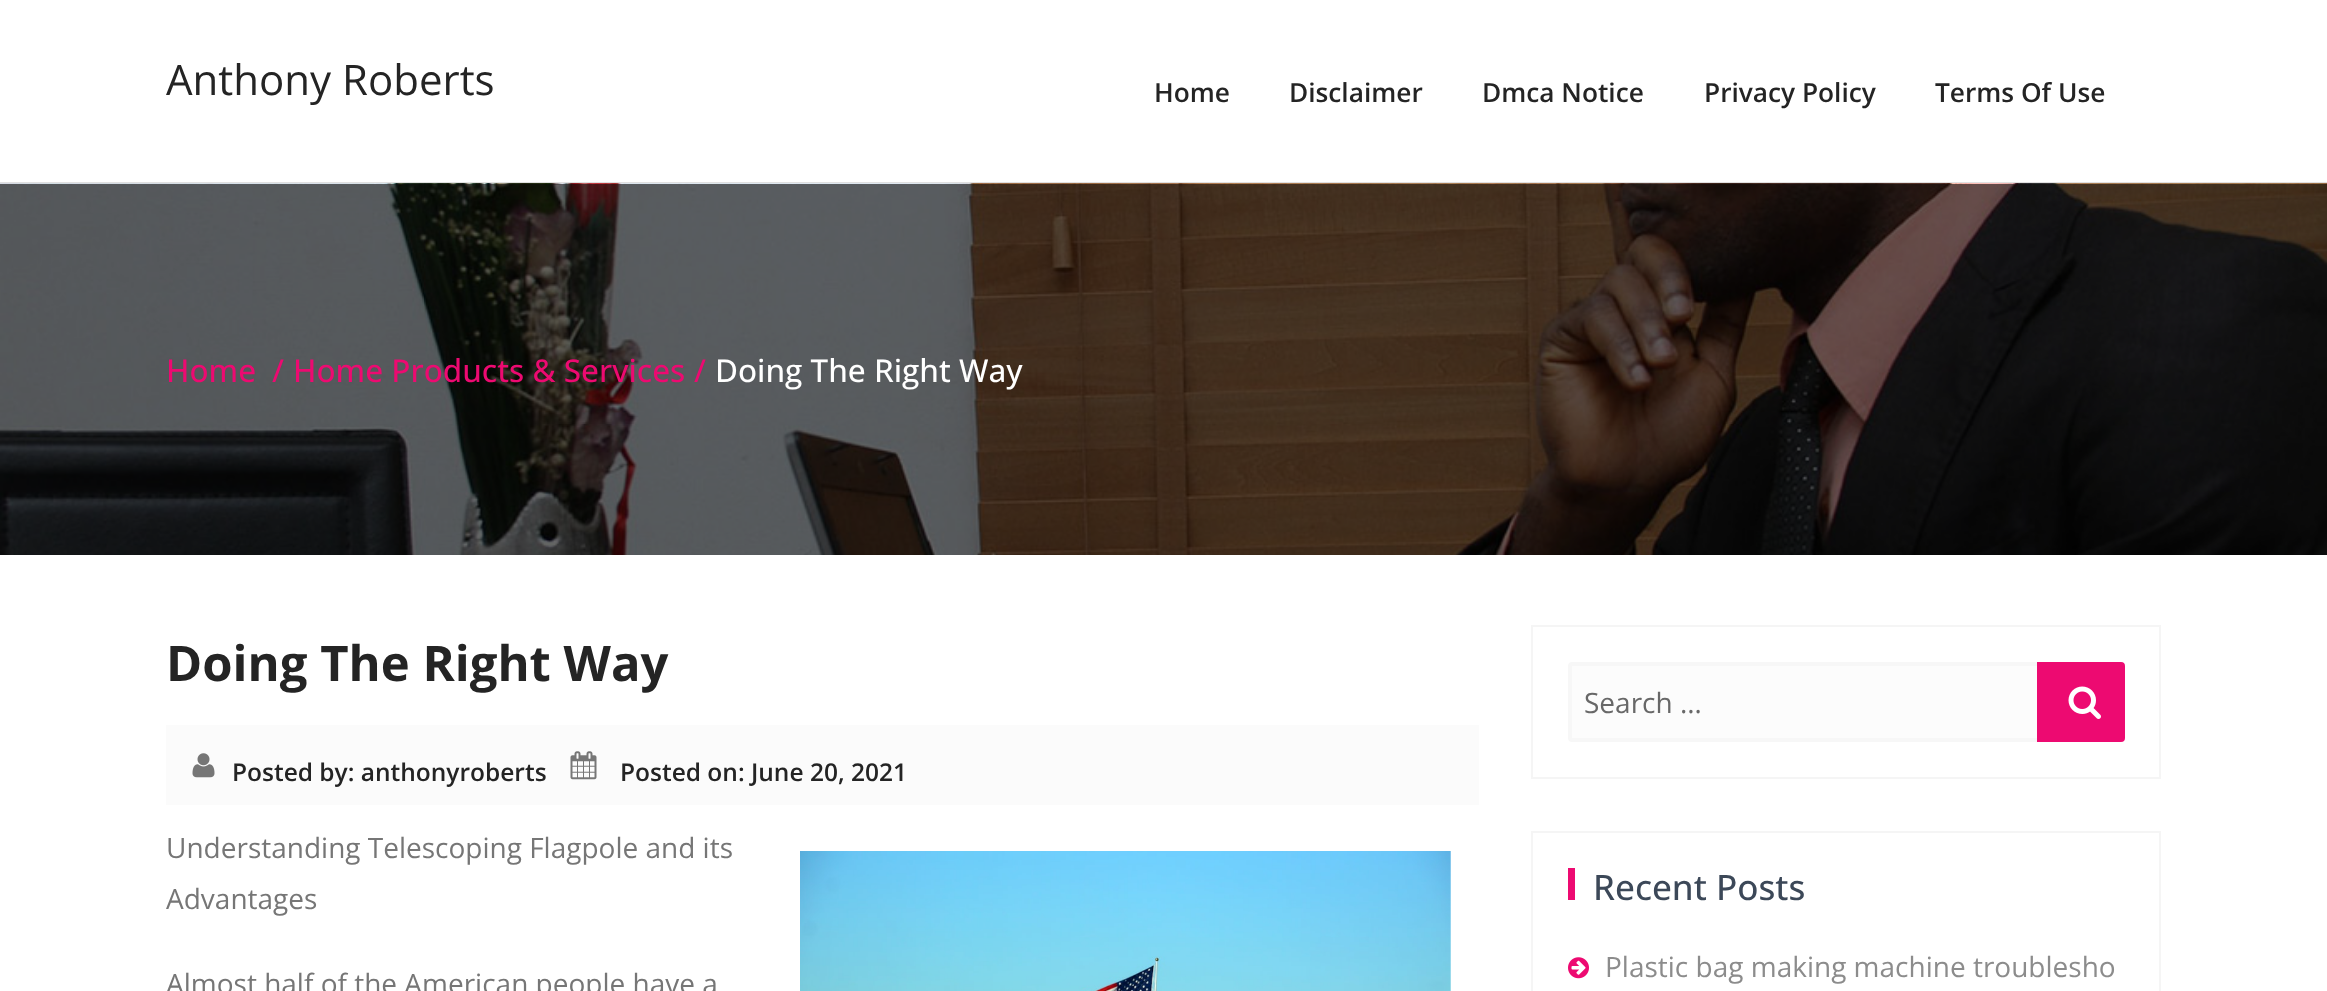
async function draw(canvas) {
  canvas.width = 2327
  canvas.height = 991
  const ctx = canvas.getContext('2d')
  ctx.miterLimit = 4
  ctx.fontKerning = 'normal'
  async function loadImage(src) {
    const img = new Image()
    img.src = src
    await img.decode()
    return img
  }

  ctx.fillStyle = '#fff'
  ctx.fillRect(0, 0, 2327, 991)
  ctx.fillStyle = '#e0e0e0'
  ctx.fillRect(0, 182, 2327, 1)
  ctx.font = '42px Open Sans'
  ctx.fillStyle = '#242424'
  ctx.fillText('Anthony Roberts', 166, 95)
  ctx.font = '600 26.25px Open Sans'
  ctx.fillText('Home', 1154, 102)
  ctx.fillText('Disclaimer', 1289, 102)
  ctx.fillText('Dmca Notice', 1482, 102)
  ctx.fillText('Privacy Policy', 1704, 102)
  ctx.fillText('Terms Of Use', 1935, 102)
  ctx.drawImage(await loadImage('image0.png'), 0, 183, 2327, 372)
  ctx.font = '500 31.5px Open Sans'
  ctx.fillStyle = '#ed0a71'
  ctx.fillText('Home', 166, 382)
  ctx.fillText('/', 272, 382)
  ctx.fillText('Home Products & Services', 293, 382)
  ctx.fillText('/', 694, 382)
  ctx.fillStyle = '#fff'
  ctx.fillText('Doing The Right Way', 715, 382)
  ctx.font = 'bold 49px Open Sans'
  ctx.fillStyle = '#242424'
  ctx.fillText('Doing The Right Way', 166, 681)
  ctx.fillStyle = '#fbfbfb'
  ctx.fillRect(166, 725, 1313, 80)
  ctx.drawImage(await loadImage('image1.png'), 192, 753, 23, 25)
  ctx.font = '600 24.5px Open Sans'
  ctx.fillStyle = '#242424'
  ctx.fillText('Posted by: anthonyroberts', 232, 781)
  ctx.drawImage(await loadImage('image2.png'), 570, 751, 27, 29)
  ctx.fillText('Posted on: June 20, 2021', 620, 781)
  ctx.font = '28px Open Sans'
  ctx.fillStyle = '#767676'
  ctx.fillText('Understanding Telescoping Flagpole and its', 166, 858)
  ctx.drawImage(await loadImage('image3.png'), 800, 851, 651, 140)
  ctx.fillText('Advantages', 166, 909)
  ctx.fillText('Almost half of the American people have a', 166, 994)
  ctx.strokeStyle = '#f5f5f5'
  ctx.lineWidth = 2
  ctx.strokeRect(1532, 626, 628, 152)
  ctx.fillStyle = '#fcfcfc'
  ctx.beginPath()
  ctx.roundRect(1570, 664, 479, 76, [2, 0, 0, 2])
  ctx.fill()
  ctx.strokeStyle = '#f7f7f7'
  ctx.lineWidth = 4
  ctx.stroke()
  ctx.fillStyle = '#686868'
  ctx.fillText('Search …', 1584, 713)
  ctx.fillStyle = '#ed0a71'
  ctx.beginPath()
  ctx.roundRect(2039, 664, 84, 76, [0, 2, 2, 0])
  ctx.fill()
  ctx.strokeStyle = '#ed0a71'
  ctx.stroke()
  ctx.drawImage(await loadImage('image4.png'), 2068, 686, 33, 33)
  ctx.strokeStyle = '#f5f5f5'
  ctx.lineWidth = 2
  ctx.strokeRect(1532, 832, 628, 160)
  ctx.fillRect(1568, 868, 7, 32)
  ctx.font = '500 35px Open Sans'
  ctx.fillStyle = '#3c4858'
  ctx.fillText('Recent Posts', 1593, 900)
  ctx.drawImage(await loadImage('image5.png'), 1568, 957, 21, 22)
  ctx.font = '28px Open Sans'
  ctx.fillStyle = '#8c8c8c'
  ctx.fillText('Plastic bag making machine troublesho', 1605, 977)
}

draw(document.querySelector('canvas'))
